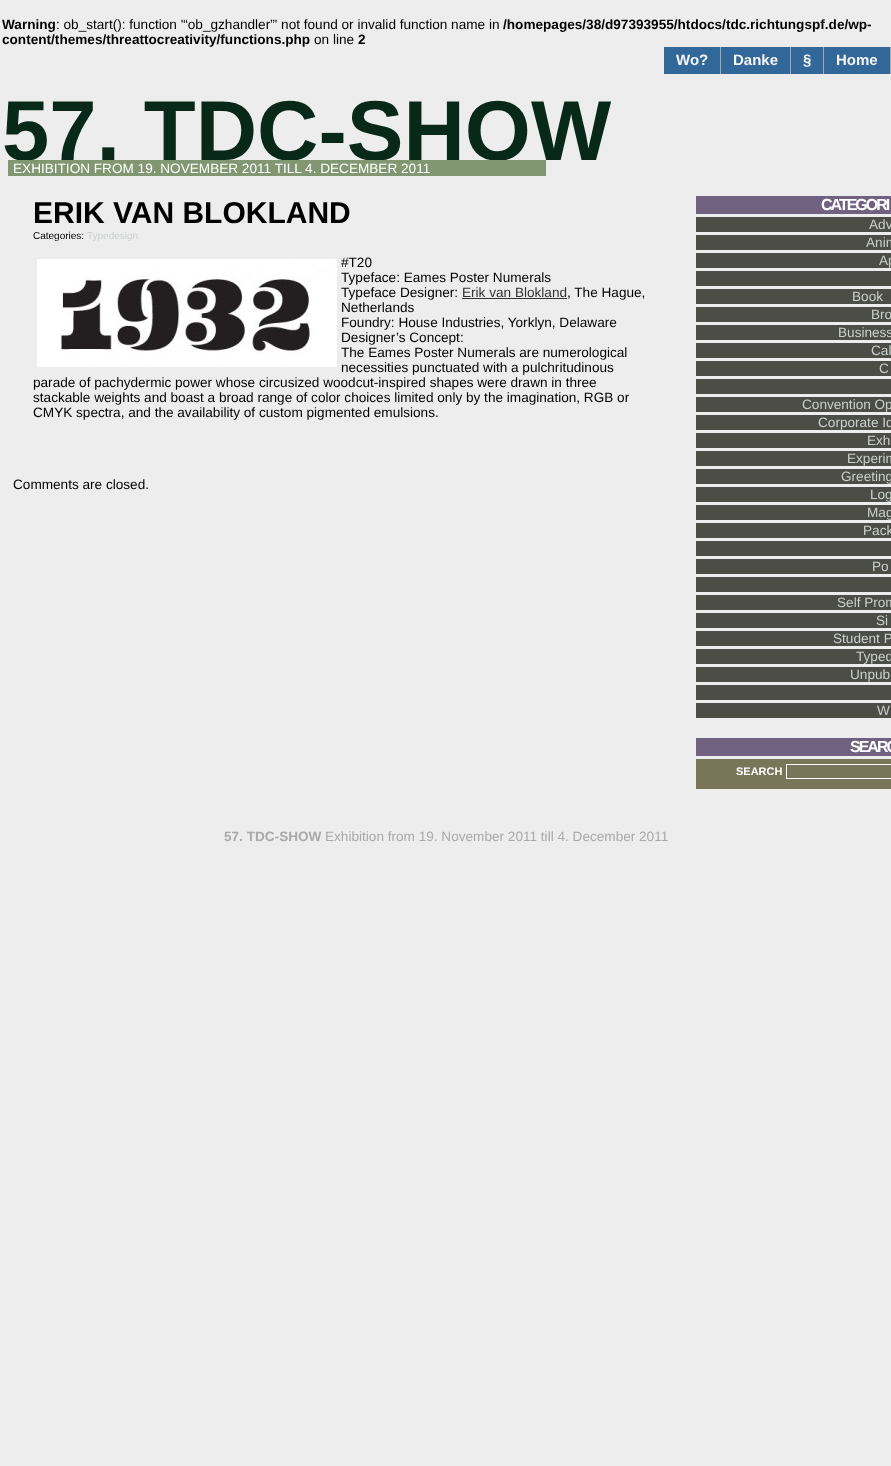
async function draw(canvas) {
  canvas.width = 891
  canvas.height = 1466
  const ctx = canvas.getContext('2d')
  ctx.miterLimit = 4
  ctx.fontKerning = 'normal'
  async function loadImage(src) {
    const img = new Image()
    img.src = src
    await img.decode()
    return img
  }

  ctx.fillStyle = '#ededed'
  ctx.fillRect(0, 0, 891, 1466)
  ctx.font = 'bold 13.6px Liberation Sans'
  ctx.fillStyle = '#000'
  ctx.fillText('Warning', 2, 29)
  ctx.font = '13.6px Liberation Sans'
  ctx.fillText(': ob_start(): function \'“ob_gzhandler”\' not found or invalid function name in', 56, 29)
  ctx.font = 'bold 13.6px Liberation Sans'
  ctx.fillText('/homepages/38/d97393955/htdocs/tdc.richtungspf.de/wp-', 503, 29)
  ctx.fillText('content/themes/threattocreativity/functions.php', 2, 44)
  ctx.font = '13.6px Liberation Sans'
  ctx.fillText('on line', 314, 44)
  ctx.font = 'bold 13.6px Liberation Sans'
  ctx.fillText('2', 358, 44)
  ctx.fillStyle = '#a9a9a9'
  ctx.fillRect(720, 47, 1, 27)
  ctx.fillStyle = '#316899'
  ctx.fillRect(664, 47, 56, 27)
  ctx.font = 'bold 15px Liberation Sans'
  ctx.fillStyle = '#f5f5f4'
  ctx.fillText('Wo?', 676, 65)
  ctx.fillStyle = '#a9a9a9'
  ctx.fillRect(790, 47, 1, 27)
  ctx.fillStyle = '#316899'
  ctx.fillRect(721, 47, 69, 27)
  ctx.fillStyle = '#f5f5f4'
  ctx.fillText('Danke', 733, 65)
  ctx.fillStyle = '#a9a9a9'
  ctx.fillRect(823, 47, 1, 27)
  ctx.fillStyle = '#316899'
  ctx.fillRect(791, 47, 32, 27)
  ctx.fillStyle = '#f5f5f4'
  ctx.fillText('§', 803, 65)
  ctx.fillStyle = '#a9a9a9'
  ctx.fillRect(890, 47, 1, 27)
  ctx.fillStyle = '#316899'
  ctx.fillRect(824, 47, 66, 27)
  ctx.fillStyle = '#f5f5f4'
  ctx.fillText('Home', 836, 65)
  ctx.font = 'bold 85px Liberation Sans'
  ctx.fillStyle = '#082819'
  ctx.fillText('57. TDC-SHOW', 2, 160)
  ctx.fillStyle = '#819771'
  ctx.fillRect(8, 160, 538, 16)
  ctx.font = '13.6px Liberation Sans'
  ctx.fillStyle = '#fff'
  ctx.fillText('EXHIBITION FROM 19. NOVEMBER 2011 TILL 4. DECEMBER 2011', 13, 173)
  ctx.font = 'bold 30px Liberation Sans'
  ctx.fillStyle = '#000'
  ctx.fillText('ERIK VAN BLOKLAND', 33, 223)
  ctx.font = '10px Liberation Sans'
  ctx.fillText('Categories:', 33, 239)
  ctx.fillStyle = '#cbd0cc'
  ctx.fillText('Typedesign', 87, 239)
  ctx.font = '13.6px Liberation Sans'
  ctx.fillStyle = '#000'
  ctx.fillText('#T20', 341, 267)
  ctx.fillText('Typeface: Eames Poster Numerals', 341, 282)
  ctx.fillText('Typeface Designer:', 341, 297)
  ctx.fillStyle = '#333'
  ctx.fillText('Erik van Blokland', 462, 297)
  ctx.fillRect(462, 298, 105, 1)
  ctx.fillStyle = '#000'
  ctx.fillText(', The Hague,', 567, 297)
  ctx.fillText('Netherlands', 341, 312)
  ctx.fillText('Foundry: House Industries, Yorklyn, Delaware', 341, 327)
  ctx.fillText('Designer’s Concept:', 341, 342)
  ctx.fillText('The Eames Poster Numerals are numerological', 341, 357)
  ctx.fillText('necessities punctuated with a pulchritudinous', 341, 372)
  ctx.fillText('parade of pachydermic power whose circusized woodcut-inspired shapes were drawn in three', 33, 387)
  ctx.fillText('stackable weights and boast a broad range of color choices limited only by the imagination, RGB or', 33, 402)
  ctx.fillText('CMYK spectra, and the availability of custom pigmented emulsions.', 33, 417)
  ctx.drawImage(await loadImage('image0.png'), 37, 259, 300, 108)
  ctx.fillText('Comments are closed.', 13, 489)
  ctx.fillStyle = '#716180'
  ctx.fillRect(696, 196, 195, 18)
  ctx.letterSpacing = '-2px'
  ctx.font = 'bold 16px Liberation Sans'
  ctx.fillStyle = '#fff'
  ctx.fillText('CATEGORI', 821, 210)
  ctx.fillStyle = '#4b4d46'
  ctx.fillRect(696, 217, 195, 15)
  ctx.letterSpacing = '0px'
  ctx.font = '13.6px Liberation Sans'
  ctx.fillStyle = '#cbd0cc'
  ctx.fillText('Adv', 869, 229)
  ctx.fillStyle = '#4b4d46'
  ctx.fillRect(696, 235, 195, 15)
  ctx.fillStyle = '#cbd0cc'
  ctx.fillText('Anim', 866, 247)
  ctx.fillStyle = '#4b4d46'
  ctx.fillRect(696, 253, 195, 15)
  ctx.fillStyle = '#cbd0cc'
  ctx.fillText('Ap', 879, 265)
  ctx.fillStyle = '#4b4d46'
  ctx.fillRect(696, 271, 195, 15)
  ctx.fillRect(696, 289, 195, 15)
  ctx.fillStyle = '#cbd0cc'
  ctx.fillText('Book', 852, 301)
  ctx.fillStyle = '#4b4d46'
  ctx.fillRect(696, 307, 195, 15)
  ctx.fillStyle = '#cbd0cc'
  ctx.fillText('Bro', 871, 319)
  ctx.fillStyle = '#4b4d46'
  ctx.fillRect(696, 325, 195, 15)
  ctx.fillStyle = '#cbd0cc'
  ctx.fillText('Business', 838, 337)
  ctx.fillStyle = '#4b4d46'
  ctx.fillRect(696, 343, 195, 15)
  ctx.fillStyle = '#cbd0cc'
  ctx.fillText('Cal', 871, 355)
  ctx.fillStyle = '#4b4d46'
  ctx.fillRect(696, 361, 195, 15)
  ctx.fillStyle = '#cbd0cc'
  ctx.fillText('C', 879, 373)
  ctx.fillStyle = '#4b4d46'
  ctx.fillRect(696, 379, 195, 15)
  ctx.fillRect(696, 397, 195, 15)
  ctx.fillStyle = '#cbd0cc'
  ctx.fillText('Convention Op', 802, 409)
  ctx.fillStyle = '#4b4d46'
  ctx.fillRect(696, 415, 195, 15)
  ctx.fillStyle = '#cbd0cc'
  ctx.fillText('Corporate Id', 818, 427)
  ctx.fillStyle = '#4b4d46'
  ctx.fillRect(696, 433, 195, 15)
  ctx.fillStyle = '#cbd0cc'
  ctx.fillText('Exh', 867, 445)
  ctx.fillStyle = '#4b4d46'
  ctx.fillRect(696, 451, 195, 15)
  ctx.fillStyle = '#cbd0cc'
  ctx.fillText('Experim', 847, 463)
  ctx.fillStyle = '#4b4d46'
  ctx.fillRect(696, 469, 195, 15)
  ctx.fillStyle = '#cbd0cc'
  ctx.fillText('Greeting', 841, 481)
  ctx.fillStyle = '#4b4d46'
  ctx.fillRect(696, 487, 195, 15)
  ctx.fillStyle = '#cbd0cc'
  ctx.fillText('Log', 870, 499)
  ctx.fillStyle = '#4b4d46'
  ctx.fillRect(696, 505, 195, 15)
  ctx.fillStyle = '#cbd0cc'
  ctx.fillText('Mag', 867, 517)
  ctx.fillStyle = '#4b4d46'
  ctx.fillRect(696, 523, 195, 15)
  ctx.fillStyle = '#cbd0cc'
  ctx.fillText('Pack', 863, 535)
  ctx.fillStyle = '#4b4d46'
  ctx.fillRect(696, 541, 195, 15)
  ctx.fillRect(696, 559, 195, 15)
  ctx.fillStyle = '#cbd0cc'
  ctx.fillText('Po', 872, 571)
  ctx.fillStyle = '#4b4d46'
  ctx.fillRect(696, 577, 195, 15)
  ctx.fillRect(696, 595, 195, 15)
  ctx.fillStyle = '#cbd0cc'
  ctx.fillText('Self Prom', 837, 607)
  ctx.fillStyle = '#4b4d46'
  ctx.fillRect(696, 613, 195, 15)
  ctx.fillStyle = '#cbd0cc'
  ctx.fillText('Si', 876, 625)
  ctx.fillStyle = '#4b4d46'
  ctx.fillRect(696, 631, 195, 15)
  ctx.fillStyle = '#cbd0cc'
  ctx.fillText('Student P', 833, 643)
  ctx.fillStyle = '#4b4d46'
  ctx.fillRect(696, 649, 195, 15)
  ctx.fillStyle = '#cbd0cc'
  ctx.fillText('Typed', 856, 661)
  ctx.fillStyle = '#4b4d46'
  ctx.fillRect(696, 667, 195, 15)
  ctx.fillStyle = '#cbd0cc'
  ctx.fillText('Unpub', 850, 679)
  ctx.fillStyle = '#4b4d46'
  ctx.fillRect(696, 685, 195, 15)
  ctx.fillRect(696, 703, 195, 15)
  ctx.fillStyle = '#cbd0cc'
  ctx.fillText('W', 877, 715)
  ctx.fillStyle = '#716180'
  ctx.fillRect(696, 738, 195, 18)
  ctx.letterSpacing = '-2px'
  ctx.font = 'bold 16px Liberation Sans'
  ctx.fillStyle = '#fff'
  ctx.fillText('SEARC', 850, 752)
  ctx.fillStyle = '#787559'
  ctx.fillRect(696, 759, 195, 30)
  ctx.letterSpacing = '0px'
  ctx.font = 'bold 11px Liberation Sans'
  ctx.fillStyle = '#fff'
  ctx.fillText('SEARCH', 736, 775)
  ctx.strokeStyle = '#fff'
  ctx.strokeRect(786.5, 764.5, 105, 14)
  ctx.font = 'bold 13.6px Liberation Sans'
  ctx.fillStyle = '#a9a9a9'
  ctx.fillText('57. TDC-SHOW', 224, 841)
  ctx.font = '13.6px Liberation Sans'
  ctx.fillText('Exhibition from 19. November 2011 till 4. December 2011', 325, 841)
}

draw(document.querySelector('canvas'))
